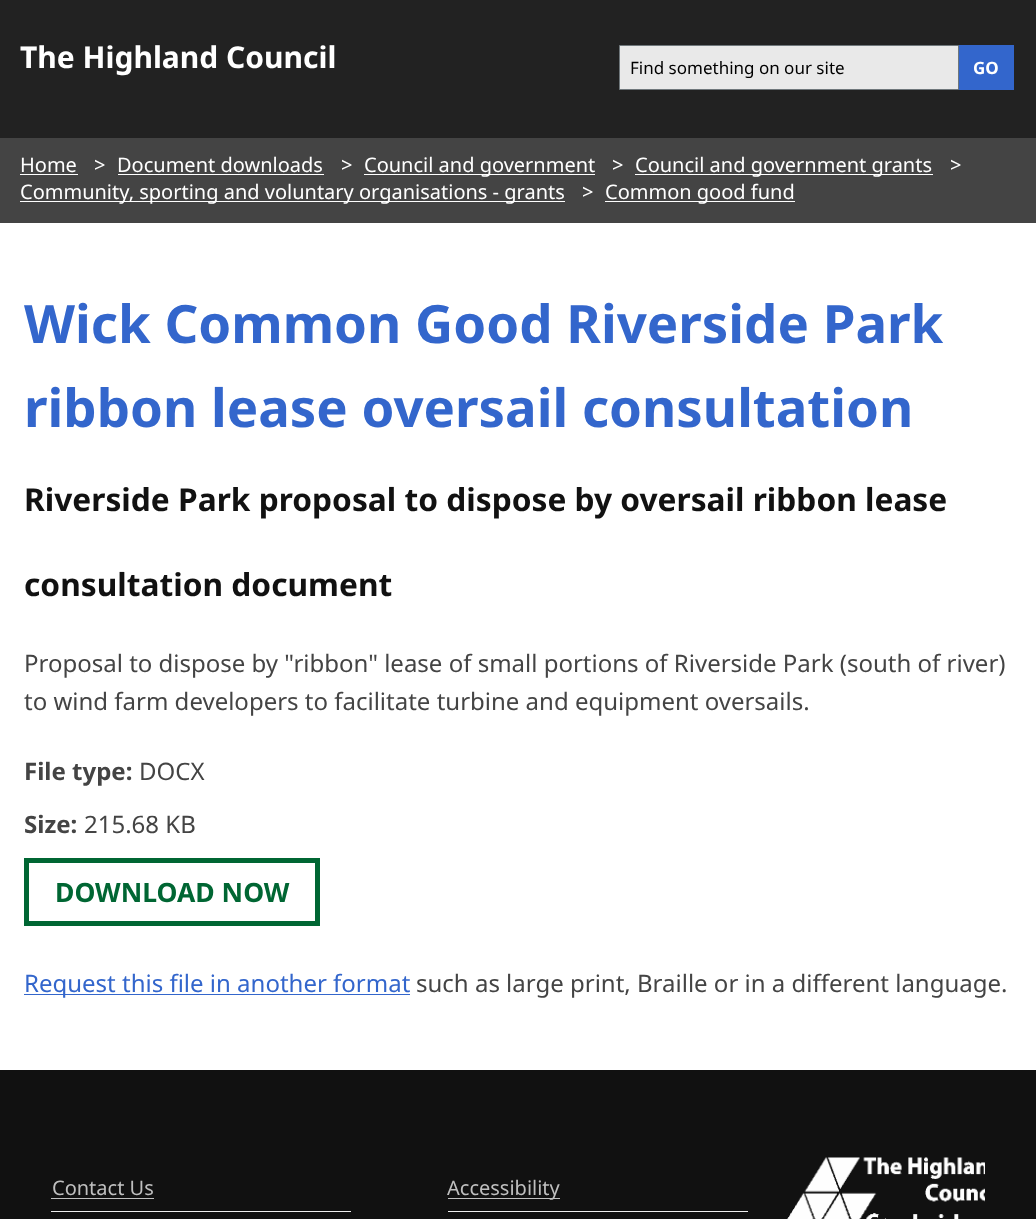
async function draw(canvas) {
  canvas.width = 1036
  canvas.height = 1219
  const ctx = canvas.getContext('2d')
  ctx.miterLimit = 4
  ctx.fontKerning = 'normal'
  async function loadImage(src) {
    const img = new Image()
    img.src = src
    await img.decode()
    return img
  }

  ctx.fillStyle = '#111'
  ctx.fillRect(0, 0, 1036, 1219)
  ctx.fillStyle = '#222'
  ctx.fillRect(0, 0, 1036, 138)
  ctx.font = 'bold 30px Noto Sans'
  ctx.fillStyle = '#fff'
  ctx.fillText('The Highland Council', 20, 68)
  ctx.fillStyle = '#e9e9e9'
  ctx.beginPath()
  ctx.rect(619.5, 45.5, 339, 44)
  ctx.fill()
  ctx.strokeStyle = '#6f777b'
  ctx.stroke()
  ctx.font = '17px Noto Sans'
  ctx.fillStyle = '#000'
  ctx.fillText('Find something on our site', 630, 74)
  ctx.fillStyle = '#36c'
  ctx.fillRect(959, 45, 55, 45)
  ctx.font = 'bold 17px Noto Sans'
  ctx.fillStyle = '#fff'
  ctx.fillText('GO', 973, 74)
  ctx.fillStyle = '#444'
  ctx.fillRect(0, 138, 1036, 85)
  ctx.font = '20px Noto Sans'
  ctx.fillStyle = '#fff'
  ctx.fillText('Home', 20, 172)
  ctx.fillRect(20, 174, 58, 1)
  ctx.fillText('>', 94, 172)
  ctx.fillText('Document downloads', 117, 172)
  ctx.fillRect(118, 174, 206, 1)
  ctx.fillText('>', 341, 172)
  ctx.fillRect(364, 174, 231, 1)
  ctx.fillText('Council and government', 364, 172)
  ctx.fillText('>', 612, 172)
  ctx.fillRect(635, 174, 298, 1)
  ctx.fillText('Council and government grants', 635, 172)
  ctx.fillText('>', 950, 172)
  ctx.fillRect(20, 201, 545, 1)
  ctx.fillText('Community, sporting and voluntary organisations - grants', 20, 199)
  ctx.fillText('>', 582, 199)
  ctx.fillRect(605, 201, 190, 1)
  ctx.fillText('Common good fund', 605, 199)
  ctx.fillRect(0, 223, 1036, 847)
  ctx.font = 'bold 52.75px Noto Sans'
  ctx.fillStyle = '#36c'
  ctx.fillText('Wick Common Good Riverside Park', 24, 343)
  ctx.fillText('ribbon lease oversail consultation', 24, 427)
  ctx.font = 'bold 31.7px Noto Sans'
  ctx.fillStyle = '#111'
  ctx.fillText('Riverside Park proposal to dispose by oversail ribbon lease', 24, 511)
  ctx.fillText('consultation document', 24, 596)
  ctx.font = '24px Noto Sans'
  ctx.fillStyle = '#444'
  ctx.fillText('Proposal to dispose by "ribbon" lease of small portions of Riverside Park (south of river)', 24, 672)
  ctx.fillText('to wind farm developers to facilitate turbine and equipment oversails.', 24, 710)
  ctx.font = 'bold 24px Noto Sans'
  ctx.fillText('File type:', 24, 780)
  ctx.font = '24px Noto Sans'
  ctx.fillText('DOCX', 139, 780)
  ctx.font = 'bold 24px Noto Sans'
  ctx.fillText('Size:', 24, 833)
  ctx.font = '24px Noto Sans'
  ctx.fillText('215.68 KB', 84, 833)
  ctx.strokeStyle = '#063'
  ctx.lineWidth = 5
  ctx.strokeRect(26.5, 860.5, 291, 63)
  ctx.font = 'bold 26.5px Noto Sans'
  ctx.fillStyle = '#063'
  ctx.fillText('DOWNLOAD NOW', 55, 902)
  ctx.fillStyle = '#36c'
  ctx.fillRect(24, 994, 386, 1)
  ctx.font = '24px Noto Sans'
  ctx.fillText('Request this file in another format', 24, 992)
  ctx.fillStyle = '#444'
  ctx.fillText('such as large print, Braille or in a different language.', 416, 992)
  ctx.fillStyle = '#eee'
  ctx.fillRect(51, 1211, 300, 1)
  ctx.font = '20px Noto Sans'
  ctx.fillStyle = '#bfbfbf'
  ctx.fillText('Contact Us', 52, 1195)
  ctx.fillRect(51, 1198, 103, 1)
  ctx.fillStyle = '#eee'
  ctx.fillRect(448, 1211, 300, 1)
  ctx.fillStyle = '#bfbfbf'
  ctx.fillRect(448, 1198, 112, 1)
  ctx.fillText('Accessibility', 447, 1195)
  ctx.drawImage(await loadImage('image0.png'), 787, 1157, 198, 62)
}

draw(document.querySelector('canvas'))
